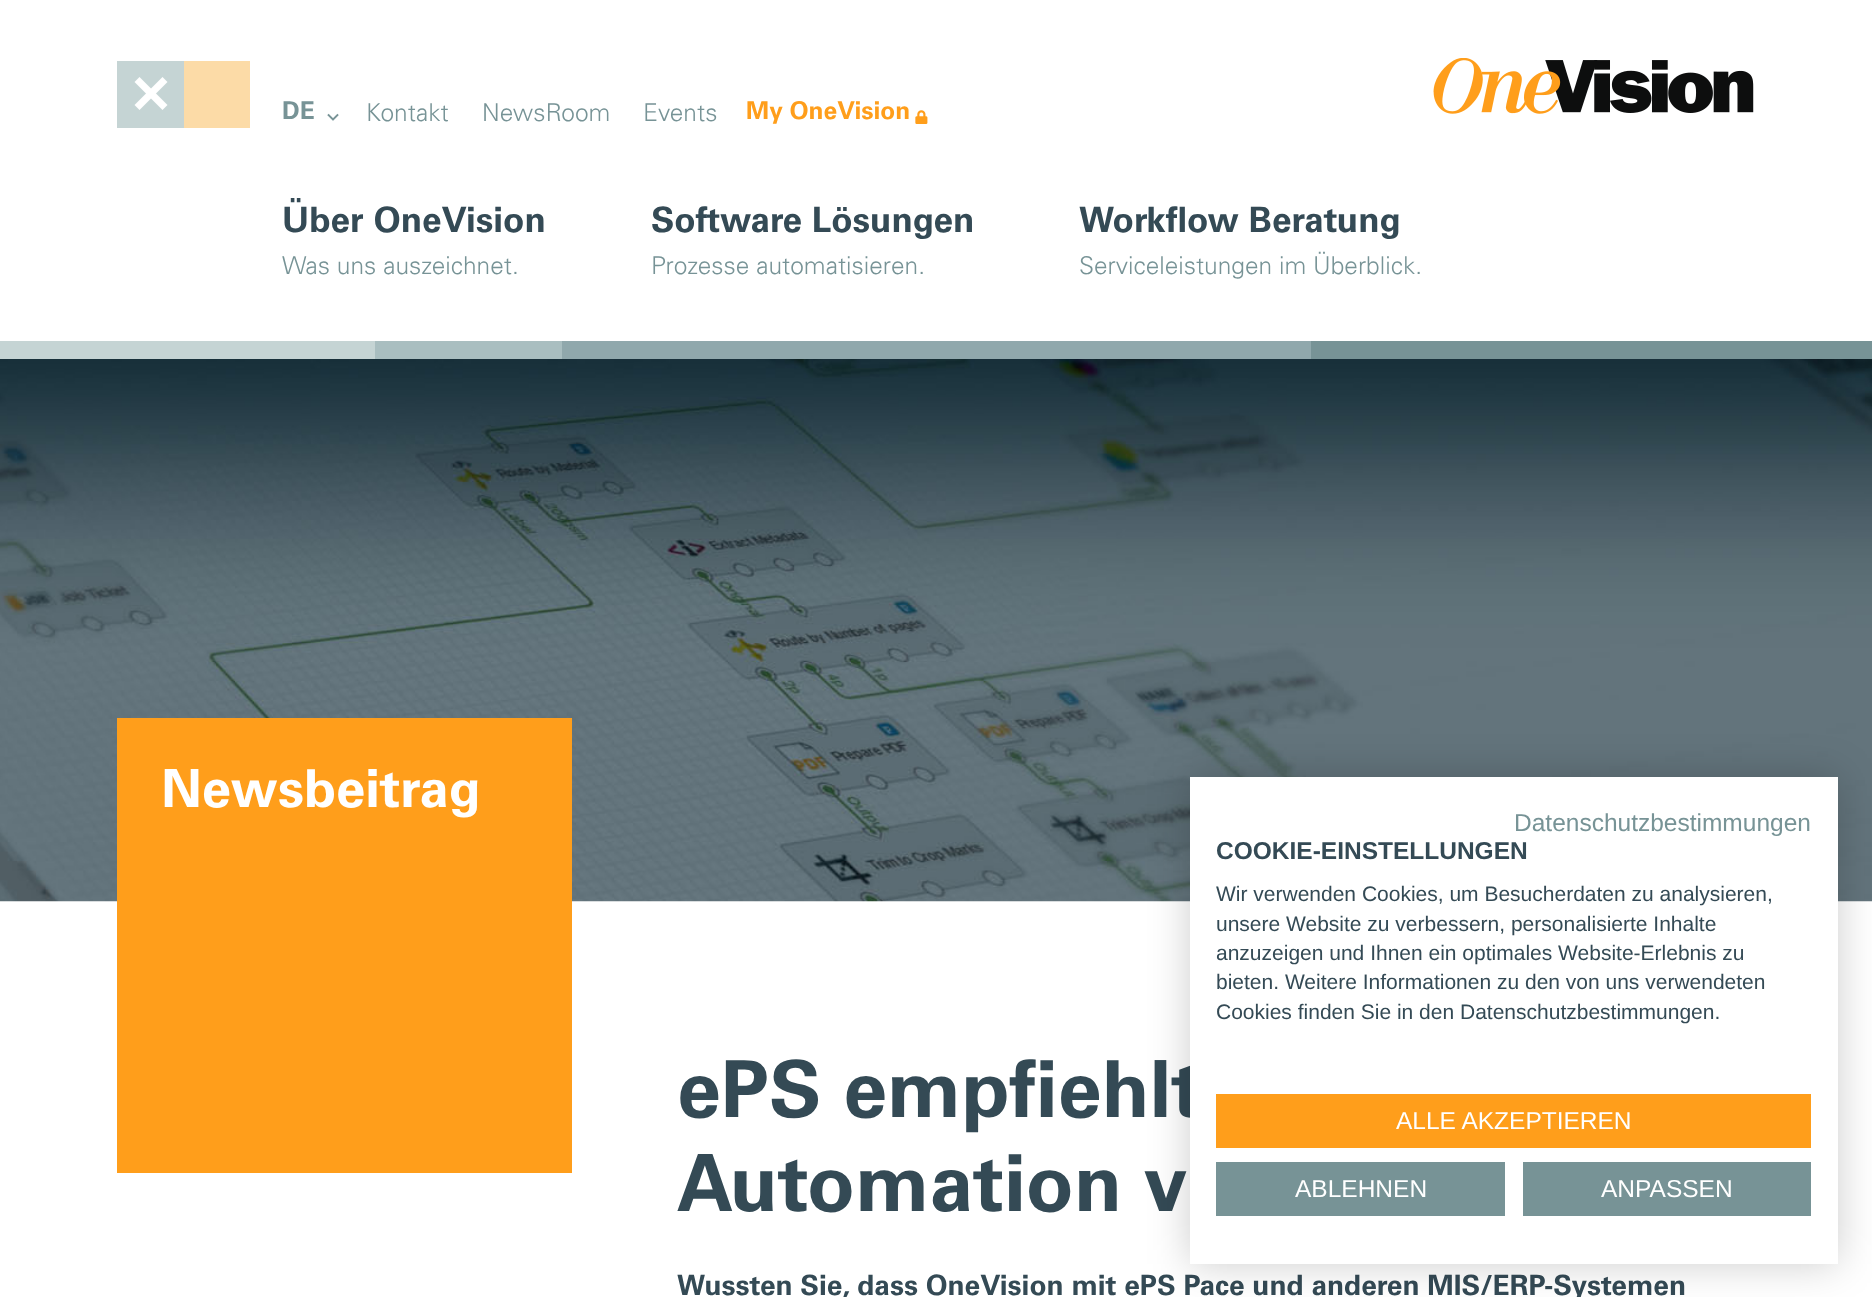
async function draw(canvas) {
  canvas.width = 1872
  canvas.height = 1297
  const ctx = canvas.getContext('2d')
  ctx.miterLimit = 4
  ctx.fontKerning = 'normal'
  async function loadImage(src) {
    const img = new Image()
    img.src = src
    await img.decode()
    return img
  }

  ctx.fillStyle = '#fff'
  ctx.fillRect(0, 0, 1872, 1297)
  ctx.fillStyle = '#c5d4d4'
  ctx.fillRect(117, 61, 67, 67)
  ctx.fillStyle = '#fff'
  ctx.beginPath()
  ctx.moveTo(134.5, 105)
  ctx.lineTo(162.5, 77)
  ctx.lineTo(167.5, 82)
  ctx.lineTo(139.5, 110)
  ctx.closePath()
  ctx.fill()
  ctx.beginPath()
  ctx.moveTo(139.5, 77)
  ctx.lineTo(167.5, 105)
  ctx.lineTo(162.5, 110)
  ctx.lineTo(134.5, 82)
  ctx.closePath()
  ctx.fill()
  ctx.fillStyle = '#fcdba7'
  ctx.fillRect(184, 61, 66, 67)
  ctx.drawImage(await loadImage('image0.png'), 327, 113, 12, 8)
  ctx.font = 'bold 24.5px Univers'
  ctx.fillStyle = '#779396'
  ctx.fillText('DE', 282, 119)
  ctx.font = '300 24.5px Univers'
  ctx.fillText('Kontakt', 366, 121)
  ctx.fillText('NewsRoom', 482, 121)
  ctx.fillText('Events', 643, 121)
  ctx.drawImage(await loadImage('image1.png'), 915, 110, 13, 14)
  ctx.font = 'bold 24.5px Univers'
  ctx.fillStyle = '#ff9e1b'
  ctx.fillText('My OneVision', 746, 119)
  ctx.font = 'bold 35px Univers'
  ctx.fillStyle = '#344a55'
  ctx.fillText('Über OneVision', 282, 232)
  ctx.font = '300 24.5px Univers'
  ctx.fillStyle = '#779396'
  ctx.fillText('Was uns auszeichnet.', 282, 274)
  ctx.font = 'bold 35px Univers'
  ctx.fillStyle = '#344a55'
  ctx.fillText('Software Lösungen', 651, 232)
  ctx.font = '300 24.5px Univers'
  ctx.fillStyle = '#779396'
  ctx.fillText('Prozesse automatisieren.', 651, 274)
  ctx.font = 'bold 35px Univers'
  ctx.fillStyle = '#344a55'
  ctx.fillText('Workflow Beratung', 1079, 232)
  ctx.font = '300 24.5px Univers'
  ctx.fillStyle = '#779396'
  ctx.fillText('Serviceleistungen im Überblick.', 1079, 274)
  ctx.drawImage(await loadImage('image2.png'), 1433, 58, 321, 56)
  ctx.fillStyle = '#c5d4d4'
  ctx.fillRect(0, 341, 375, 18)
  ctx.fillStyle = '#a9bec0'
  ctx.fillRect(375, 341, 187, 18)
  ctx.fillStyle = '#90a8ac'
  ctx.fillRect(562, 341, 749, 18)
  ctx.fillStyle = '#779396'
  ctx.fillRect(1311, 341, 561, 18)
  ctx.drawImage(await loadImage('image3.png'), 0, 359, 1872, 543)
  ctx.fillStyle = '#ff9e1b'
  ctx.fillRect(117, 718, 455, 455)
  ctx.font = 'bold 52.5px Univers'
  ctx.fillStyle = '#fff'
  ctx.fillText('Newsbeitrag', 161, 807)
  ctx.font = 'bold 78.75px Univers'
  ctx.fillStyle = '#344a55'
  ctx.fillText('ePS empfiehlt', 677, 1117)
  ctx.fillText('Automation v', 677, 1211)
  ctx.font = 'bold 28px Univers'
  ctx.fillText('Wussten Sie, dass OneVision mit ePS Pace und anderen MIS/ERP-Systemen', 677, 1295)
  ctx.fillStyle = '#00000033'
  ctx.filter = 'blur(21px)'
  ctx.beginPath()
  ctx.rect(1190, 777, 648, 487)
  ctx.fill()
  ctx.filter = 'none'
  ctx.fillStyle = '#fff'
  ctx.fillRect(1190, 777, 648, 487)
  ctx.font = '24.5px Liberation Sans'
  ctx.fillStyle = '#779396'
  ctx.fillText('Datenschutzbestimmungen', 1514, 831)
  ctx.font = 'bold 24.5px Liberation Sans'
  ctx.fillStyle = '#344a55'
  ctx.fillText('COOKIE-EINSTELLUNGEN', 1216, 859)
  ctx.font = '21px Liberation Sans'
  ctx.fillText('Wir verwenden Cookies, um Besucherdaten zu analysieren,', 1216, 901)
  ctx.fillText('unsere Website zu verbessern, personalisierte Inhalte', 1216, 931)
  ctx.fillText('anzuzeigen und Ihnen ein optimales Website-Erlebnis zu', 1216, 960)
  ctx.fillText('bieten. Weitere Informationen zu den von uns verwendeten', 1216, 989)
  ctx.fillText('Cookies finden Sie in den Datenschutzbestimmungen.', 1216, 1019)
  ctx.fillStyle = '#ff9e1b'
  ctx.fillRect(1216, 1094, 595, 54)
  ctx.font = '24.5px Liberation Sans'
  ctx.fillStyle = '#fff'
  ctx.fillText('ALLE AKZEPTIEREN', 1396, 1129)
  ctx.fillStyle = '#779396'
  ctx.fillRect(1216, 1162, 289, 54)
  ctx.fillStyle = '#fff'
  ctx.fillText('ABLEHNEN', 1295, 1197)
  ctx.fillStyle = '#779396'
  ctx.fillRect(1523, 1162, 288, 54)
  ctx.fillStyle = '#fff'
  ctx.fillText('ANPASSEN', 1601, 1197)
}

draw(document.querySelector('canvas'))
